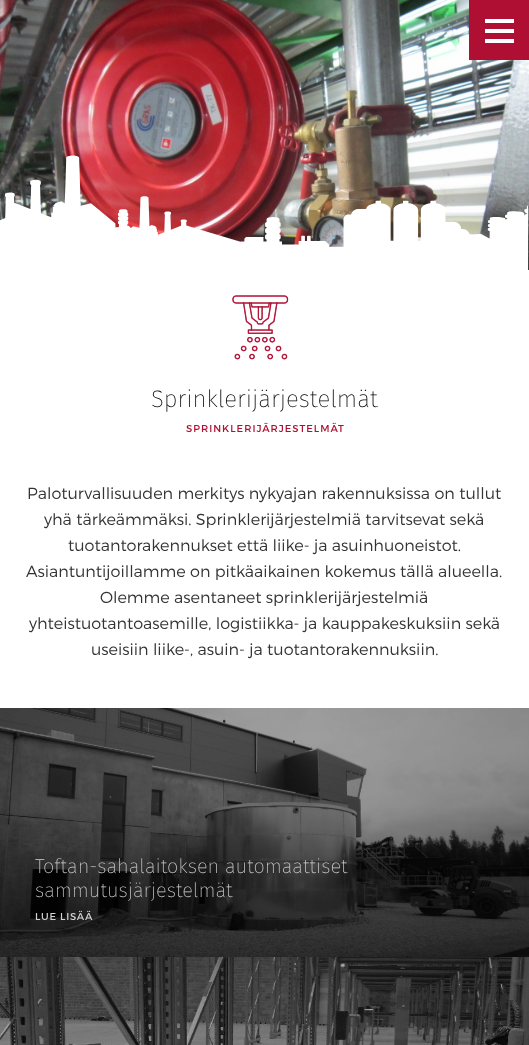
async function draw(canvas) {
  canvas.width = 529
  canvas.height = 1045
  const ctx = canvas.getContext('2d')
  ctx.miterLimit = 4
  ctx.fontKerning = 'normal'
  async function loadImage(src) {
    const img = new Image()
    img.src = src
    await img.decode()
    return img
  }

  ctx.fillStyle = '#fff'
  ctx.fillRect(0, 0, 529, 1045)
  ctx.drawImage(await loadImage('image0.png'), 0, 0, 529, 270)
  ctx.fillStyle = '#af0f32'
  ctx.fillRect(469, 0, 60, 60)
  ctx.fillStyle = '#fff'
  ctx.fillRect(485, 19, 29, 4)
  ctx.fillRect(485, 29, 29, 4)
  ctx.fillRect(485, 39, 29, 4)
  ctx.drawImage(await loadImage('image1.png'), 0, 155, 528, 115)
  ctx.drawImage(await loadImage('image2.png'), 232, 295, 57, 65)
  ctx.font = '200 24px Fira Sans'
  ctx.fillStyle = '#000'
  ctx.fillText('Sprinklerijärjestelmät', 151, 407)
  ctx.letterSpacing = '1px'
  ctx.font = '10px Montserrat'
  ctx.fillStyle = '#af0f32'
  ctx.fillText('SPRINKLERIJÄRJESTELMÄT', 186, 432)
  ctx.letterSpacing = '0px'
  ctx.font = '300 16px Montserrat'
  ctx.fillStyle = '#333'
  ctx.fillText('Paloturvallisuuden merkitys nykyajan rakennuksissa on tullut', 27, 499)
  ctx.fillText('yhä tärkeämmäksi. Sprinklerijärjestelmiä tarvitsevat sekä', 44, 525)
  ctx.fillText('tuotantorakennukset että liike- ja asuinhuoneistot.', 68, 551)
  ctx.fillText('Asiantuntijoillamme on pitkäaikainen kokemus tällä alueella.', 26, 577)
  ctx.fillText('Olemme asentaneet sprinklerijärjestelmiä', 100, 603)
  ctx.fillText('yhteistuotantoasemille, logistiikka- ja kauppakeskuksiin sekä', 29, 629)
  ctx.fillText('useisiin liike-, asuin- ja tuotantorakennuksiin.', 91, 655)
  ctx.drawImage(await loadImage('image3.png'), 0, 708, 529, 249)
  ctx.font = '200 20px Fira Sans'
  ctx.fillStyle = '#d1d1d1'
  ctx.fillText('Toftan-sahalaitoksen automaattiset', 35, 873)
  ctx.fillText('sammutusjärjestelmät', 35, 897)
  ctx.letterSpacing = '0.75px'
  ctx.font = '10px Montserrat'
  ctx.fillText('LUE LISÄÄ', 35, 920)
  ctx.drawImage(await loadImage('image4.png'), 0, 957, 529, 88)
}

draw(document.querySelector('canvas'))
